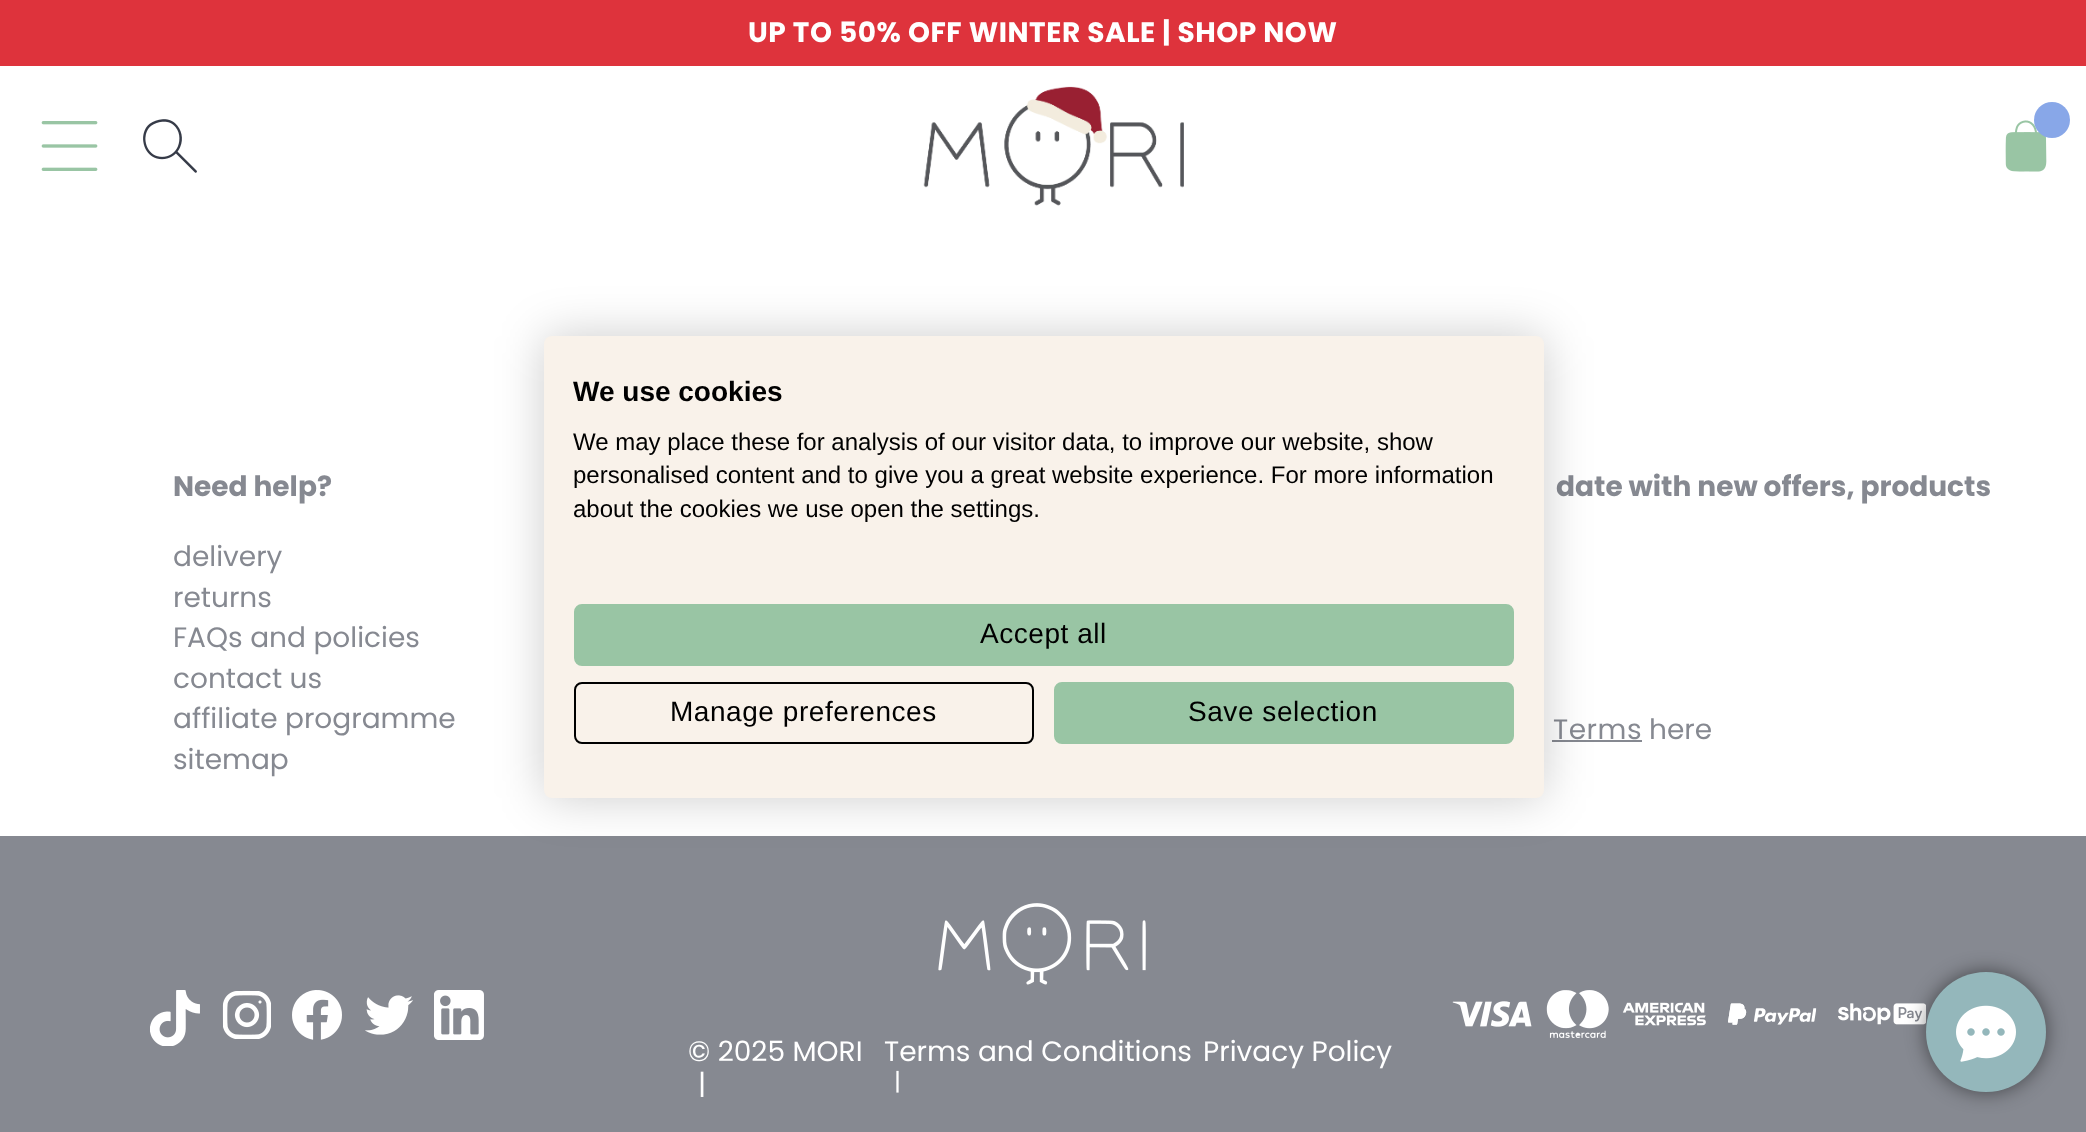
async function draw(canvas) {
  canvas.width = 2086
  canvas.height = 1132
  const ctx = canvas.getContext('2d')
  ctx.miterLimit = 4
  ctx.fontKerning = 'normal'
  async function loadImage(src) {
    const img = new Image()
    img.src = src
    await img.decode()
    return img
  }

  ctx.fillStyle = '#fff'
  ctx.fillRect(0, 0, 2086, 1132)
  ctx.fillStyle = '#de333c'
  ctx.fillRect(0, 0, 2086, 66)
  ctx.letterSpacing = '0.55px'
  ctx.font = 'bold 28px Poppins'
  ctx.fillStyle = '#fff'
  ctx.fillText('UP TO 50% OFF WINTER SALE | SHOP NOW', 748, 42)
  ctx.drawImage(await loadImage('image0.png'), 41, 121, 57, 50)
  ctx.drawImage(await loadImage('image1.png'), 143, 119, 54, 54)
  ctx.drawImage(await loadImage('image2.png'), 923, 86, 261, 120)
  ctx.drawImage(await loadImage('image3.png'), 2005, 120, 42, 52)
  ctx.fillStyle = '#88a7e8'
  ctx.beginPath()
  ctx.arc(2052, 120, 18, 0, 2 * Math.PI)
  ctx.fill()
  ctx.letterSpacing = '0px'
  ctx.fillStyle = '#868991'
  ctx.fillText('Need help?', 173, 496)
  ctx.font = '28px Poppins'
  ctx.fillText('delivery', 173, 566)
  ctx.fillText('returns', 173, 607)
  ctx.fillText('FAQs and policies', 173, 647)
  ctx.fillText('contact us', 173, 688)
  ctx.fillText('affiliate programme', 173, 728)
  ctx.fillText('sitemap', 173, 769)
  ctx.font = 'bold 28px Poppins'
  ctx.fillText('date with new offers, products', 1556, 496)
  ctx.letterSpacing = '0.55px'
  ctx.font = '28px Poppins'
  ctx.fillText('Terms', 1553, 739)
  ctx.fillRect(1552, 740, 90, 2)
  ctx.letterSpacing = '0px'
  ctx.fillText('here', 1649, 739)
  ctx.fillRect(0, 836, 2086, 296)
  ctx.drawImage(await loadImage('image4.png'), 150, 990, 50, 56)
  ctx.drawImage(await loadImage('image5.png'), 222, 990, 49, 49)
  ctx.drawImage(await loadImage('image6.png'), 292, 990, 50, 50)
  ctx.drawImage(await loadImage('image7.png'), 365, 995, 48, 40)
  ctx.drawImage(await loadImage('image8.png'), 434, 990, 50, 50)
  ctx.drawImage(await loadImage('image9.png'), 1452, 1001, 80, 26)
  ctx.drawImage(await loadImage('image10.png'), 1546, 990, 63, 48)
  ctx.drawImage(await loadImage('image11.png'), 1622, 1002, 84, 24)
  ctx.drawImage(await loadImage('image12.png'), 1728, 1003, 89, 22)
  ctx.drawImage(await loadImage('image13.png'), 1838, 1003, 88, 22)
  ctx.drawImage(await loadImage('image14.png'), 938, 903, 208, 82)
  ctx.fillStyle = '#fff'
  ctx.fillText('© 2025 MORI', 688, 1061)
  ctx.fillText('|', 698, 1094)
  ctx.fillText('Terms and Conditions', 884, 1061)
  ctx.font = '24px Poppins'
  ctx.fillText('|', 894, 1090)
  ctx.font = '28px Poppins'
  ctx.fillText('Privacy Policy', 1203, 1061)
  ctx.fillStyle = '#00000033'
  ctx.filter = 'blur(24px)'
  ctx.beginPath()
  ctx.roundRect(544, 336, 1000, 462, 8)
  ctx.fill()
  ctx.filter = 'none'
  ctx.fillStyle = '#f9f2ea'
  ctx.beginPath()
  ctx.roundRect(544, 336, 1000, 462, 8)
  ctx.fill()
  ctx.font = 'bold 28px Liberation Sans'
  ctx.fillStyle = '#000'
  ctx.fillText('We use cookies', 573, 401)
  ctx.font = '24px Liberation Sans'
  ctx.fillText('We may place these for analysis of our visitor data, to improve our website, show', 573, 450)
  ctx.fillText('personalised content and to give you a great website experience. For more information', 573, 483)
  ctx.fillText('about the cookies we use open the settings.', 573, 517)
  ctx.fillStyle = '#99c5a4'
  ctx.beginPath()
  ctx.roundRect(575, 605, 938, 60, 7)
  ctx.fill()
  ctx.strokeStyle = '#99c5a4'
  ctx.lineWidth = 2
  ctx.stroke()
  ctx.letterSpacing = '0.55px'
  ctx.font = '28px Liberation Sans'
  ctx.fillStyle = '#000'
  ctx.fillText('Accept all', 980, 643)
  ctx.beginPath()
  ctx.roundRect(575, 683, 458, 60, 7)
  ctx.strokeStyle = '#000'
  ctx.stroke()
  ctx.fillText('Manage preferences', 670, 721)
  ctx.fillStyle = '#99c5a4'
  ctx.beginPath()
  ctx.roundRect(1055, 683, 458, 60, 7)
  ctx.fill()
  ctx.strokeStyle = '#99c5a4'
  ctx.stroke()
  ctx.fillStyle = '#000'
  ctx.fillText('Save selection', 1188, 721)
  ctx.fillStyle = '#00000080'
  ctx.filter = 'blur(10px)'
  ctx.beginPath()
  ctx.roundRect(1926, 972, 120, 120, 60)
  ctx.fill()
  ctx.filter = 'none'
  ctx.fillStyle = '#94b7bb'
  ctx.beginPath()
  ctx.arc(1986, 1032, 60, 0, 2 * Math.PI)
  ctx.fill()
  ctx.drawImage(await loadImage('image15.png'), 1956, 1005, 60, 57)
}

draw(document.querySelector('canvas'))
